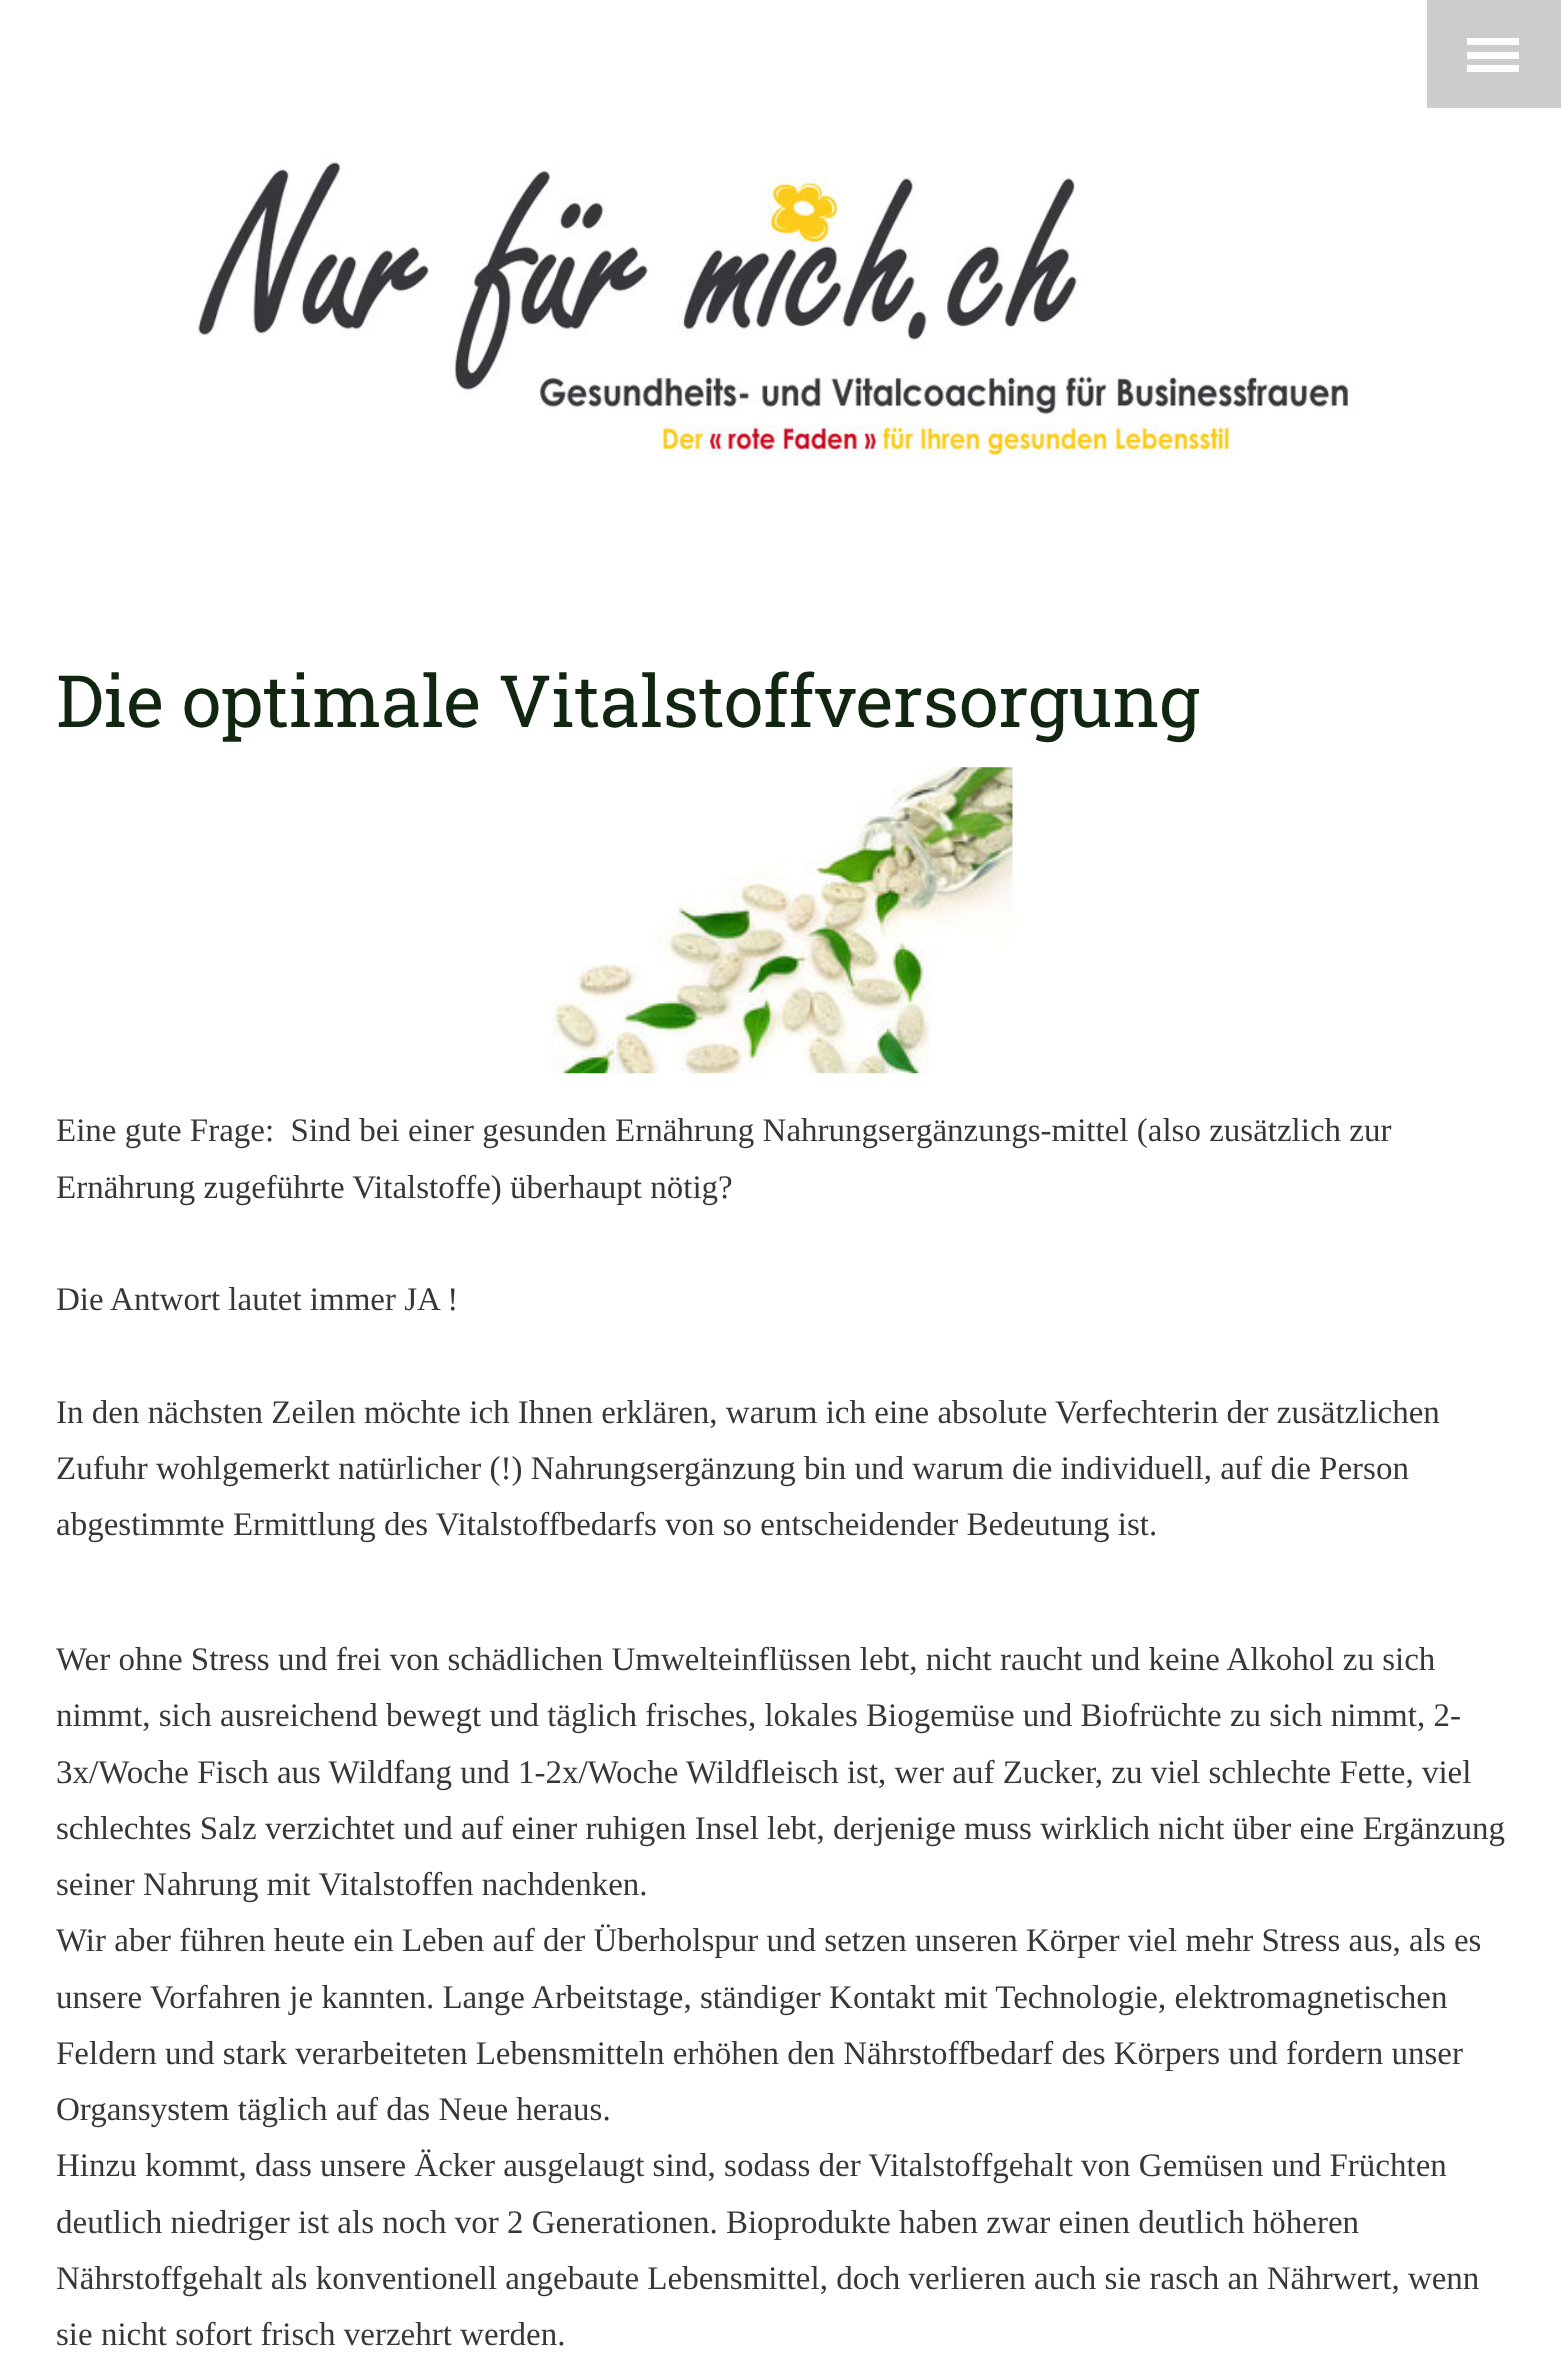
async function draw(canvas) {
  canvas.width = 1561
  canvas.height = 2359
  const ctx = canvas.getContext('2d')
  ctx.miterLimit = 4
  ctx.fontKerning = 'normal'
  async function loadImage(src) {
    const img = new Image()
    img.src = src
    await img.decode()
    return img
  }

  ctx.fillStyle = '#fff'
  ctx.fillRect(0, 0, 1561, 2359)
  ctx.fillStyle = '#ccc'
  ctx.fillRect(1427, 0, 134, 108)
  ctx.fillStyle = '#fff'
  ctx.fillRect(1467, 52, 52, 7)
  ctx.fillRect(1467, 38, 52, 7)
  ctx.fillRect(1467, 65, 52, 7)
  ctx.drawImage(await loadImage('image0.png'), 196, 159, 1157, 296)
  ctx.font = '72px Roboto Slab'
  ctx.fillStyle = '#112611'
  ctx.fillText('Die optimale Vitalstoffversorgung', 56, 727)
  ctx.drawImage(await loadImage('image1.png'), 551, 767, 462, 307)
  ctx.font = '33px Liberation Serif'
  ctx.fillStyle = '#37373a'
  ctx.fillText('Eine gute Frage:  Sind bei einer gesunden Ernährung Nahrungsergänzungs-mittel (also zusätzlich zur', 56, 1141)
  ctx.fillText('Ernährung zugeführte Vitalstoffe) überhaupt nötig?', 56, 1198)
  ctx.fillText('Die Antwort lautet immer JA !', 56, 1310)
  ctx.fillText('In den nächsten Zeilen möchte ich Ihnen erklären, warum ich eine absolute Verfechterin der zusätzlichen', 56, 1423)
  ctx.fillText('Zufuhr wohlgemerkt natürlicher (!) Nahrungsergänzung bin und warum die individuell, auf die Person', 56, 1479)
  ctx.fillText('abgestimmte Ermittlung des Vitalstoffbedarfs von so entscheidender Bedeutung ist.', 56, 1535)
  ctx.fillText('Wer ohne Stress und frei von schädlichen Umwelteinflüssen lebt, nicht raucht und keine Alkohol zu sich', 56, 1670)
  ctx.fillText('nimmt, sich ausreichend bewegt und täglich frisches, lokales Biogemüse und Biofrüchte zu sich nimmt, 2-', 56, 1726)
  ctx.fillText('3x/Woche Fisch aus Wildfang und 1-2x/Woche Wildfleisch ist, wer auf Zucker, zu viel schlechte Fette, viel', 56, 1783)
  ctx.fillText('schlechtes Salz verzichtet und auf einer ruhigen Insel lebt, derjenige muss wirklich nicht über eine Ergänzung', 56, 1839)
  ctx.fillText('seiner Nahrung mit Vitalstoffen nachdenken.', 56, 1895)
  ctx.fillText('Wir aber führen heute ein Leben auf der Überholspur und setzen unseren Körper viel mehr Stress aus, als es', 56, 1951)
  ctx.fillText('unsere Vorfahren je kannten. Lange Arbeitstage, ständiger Kontakt mit Technologie, elektromagnetischen', 56, 2008)
  ctx.fillText('Feldern und stark verarbeiteten Lebensmitteln erhöhen den Nährstoffbedarf des Körpers und fordern unser', 56, 2064)
  ctx.fillText('Organsystem täglich auf das Neue heraus.', 56, 2120)
  ctx.fillText('Hinzu kommt, dass unsere Äcker ausgelaugt sind, sodass der Vitalstoffgehalt von Gemüsen und Früchten', 56, 2176)
  ctx.fillText('deutlich niedriger ist als noch vor 2 Generationen. Bioprodukte haben zwar einen deutlich höheren', 56, 2233)
  ctx.fillText('Nährstoffgehalt als konventionell angebaute Lebensmittel, doch verlieren auch sie rasch an Nährwert, wenn', 56, 2289)
  ctx.fillText('sie nicht sofort frisch verzehrt werden.', 56, 2345)
}

draw(document.querySelector('canvas'))
